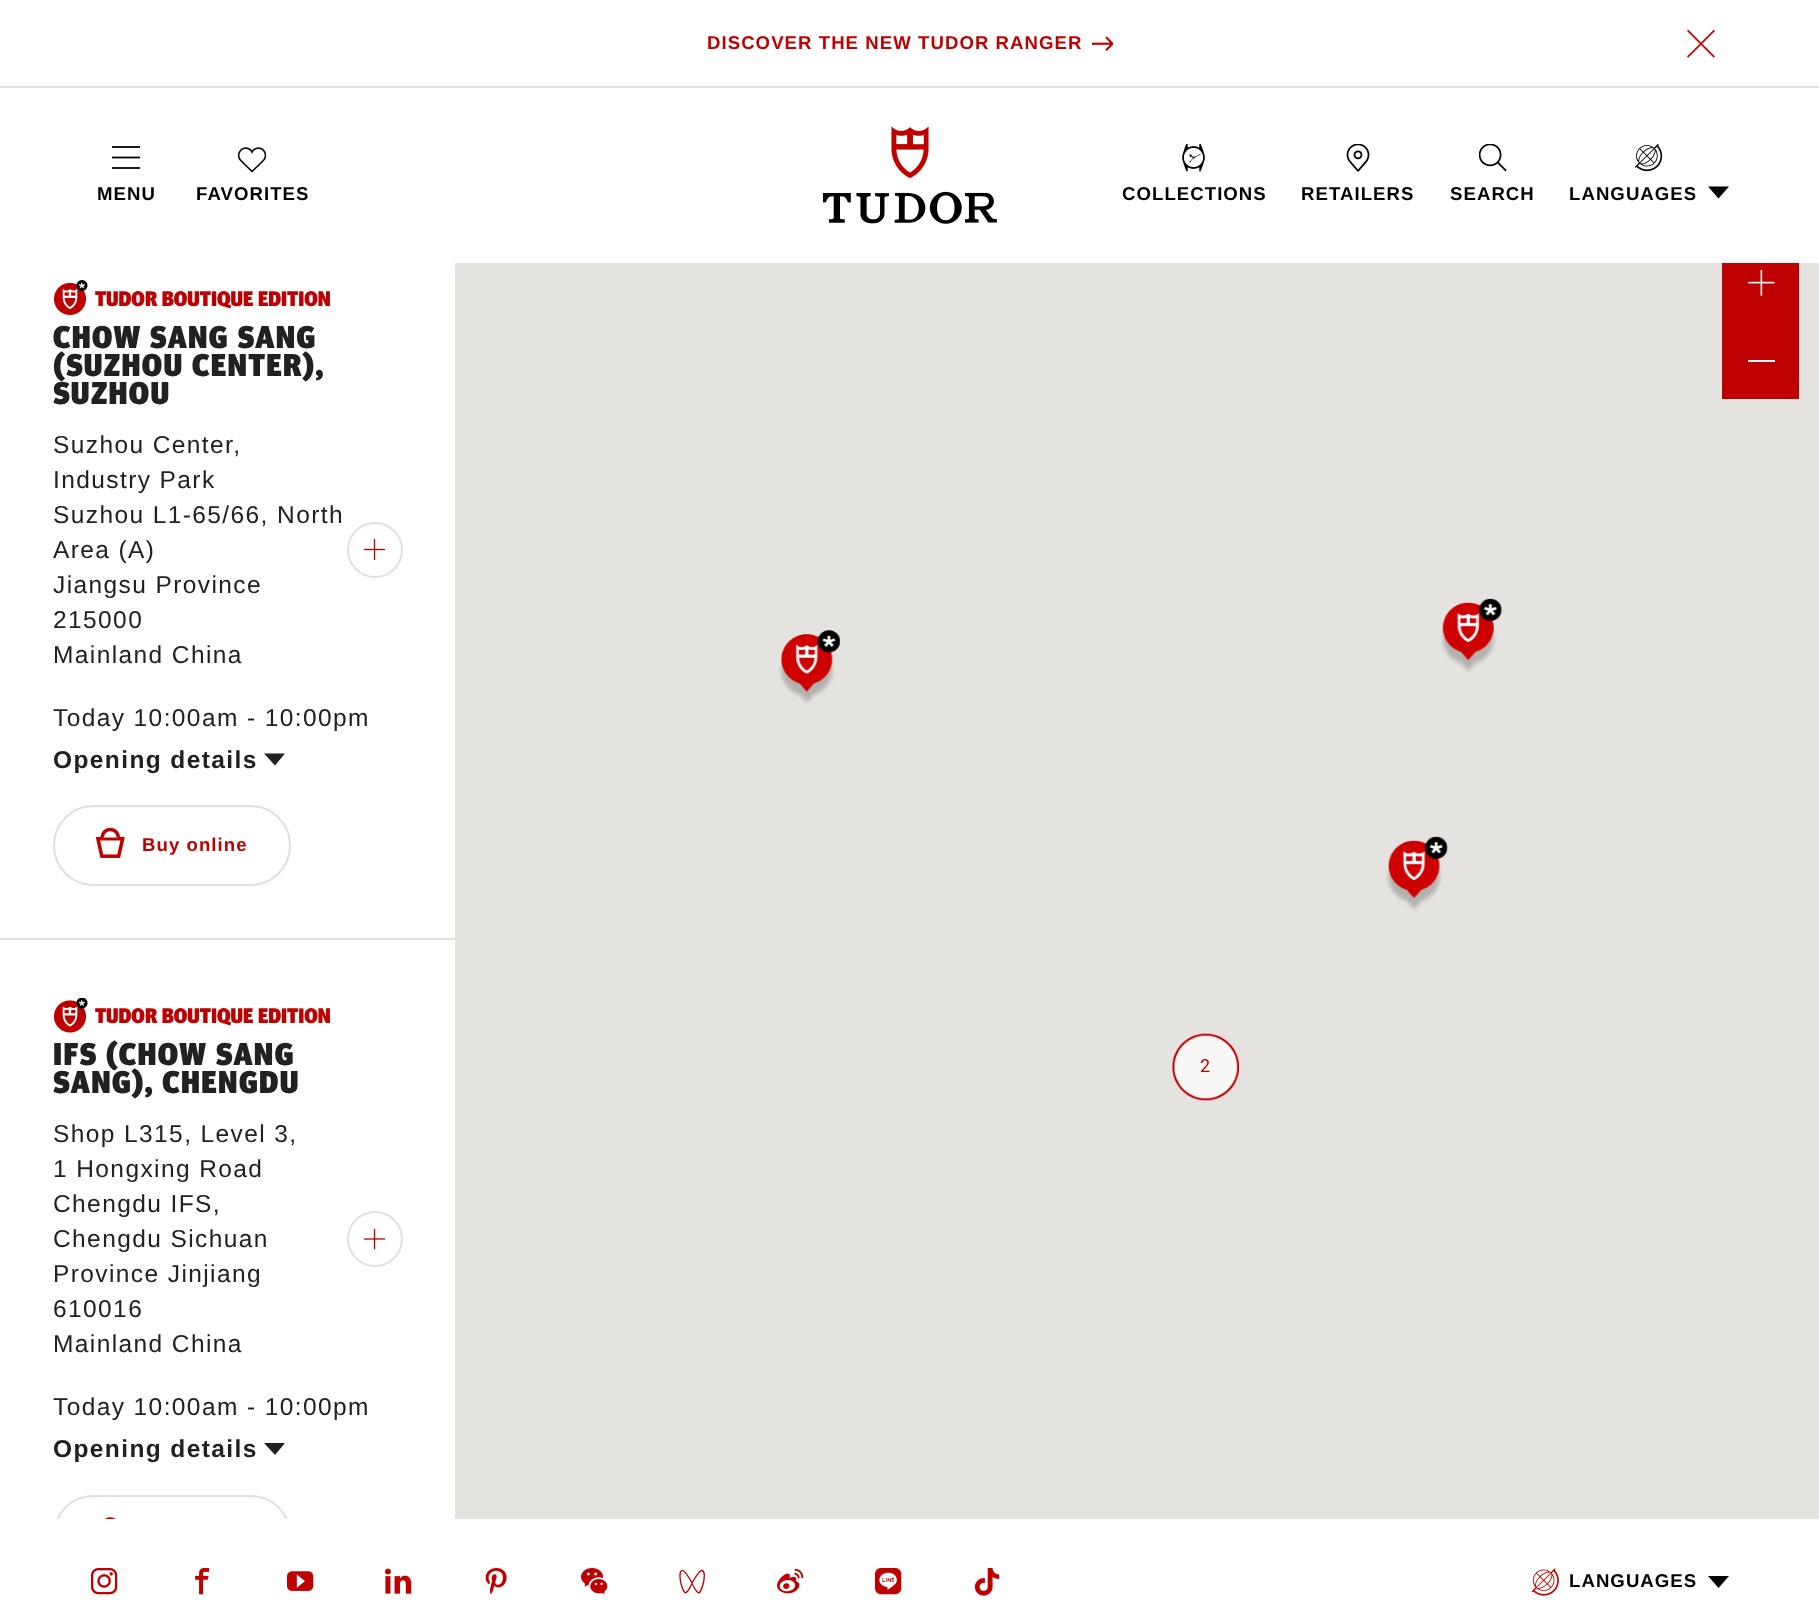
async function draw(canvas) {
  canvas.width = 1819
  canvas.height = 1600
  const ctx = canvas.getContext('2d')
  ctx.miterLimit = 4
  ctx.fontKerning = 'normal'
  async function loadImage(src) {
    const img = new Image()
    img.src = src
    await img.decode()
    return img
  }

  ctx.fillStyle = '#fff'
  ctx.fillRect(0, 0, 1819, 1600)
  ctx.fillStyle = '#e0e0e0'
  ctx.fillRect(0, 86, 1819, 2)
  ctx.letterSpacing = '1.05px'
  ctx.font = 'bold 18.6px Liberation Sans'
  ctx.fillStyle = '#be0100'
  ctx.fillText('DISCOVER THE NEW TUDOR RANGER', 707, 49)
  ctx.drawImage(await loadImage('image0.png'), 1092, 36, 21, 15)
  ctx.drawImage(await loadImage('image1.png'), 1687, 30, 28, 28)
  ctx.fillStyle = '#1a1a1a'
  ctx.fillRect(112, 146, 28, 2)
  ctx.save()
  ctx.beginPath()
  ctx.rect(112, 144, 28, 28)
  ctx.clip()
  ctx.beginPath()
  ctx.moveTo(112, 157.5)
  ctx.lineTo(140, 157.5)
  ctx.strokeStyle = '#000'
  ctx.lineWidth = 1.8
  ctx.lineCap = 'square'
  ctx.stroke()
  ctx.restore()
  ctx.fillRect(112, 167, 28, 2)
  ctx.fillStyle = '#000'
  ctx.fillText('MENU', 97, 200)
  ctx.drawImage(await loadImage('image2.png'), 823, 126, 174, 98)
  ctx.drawImage(await loadImage('image3.png'), 238, 147, 28, 26)
  ctx.fillText('FAVORITES', 196, 200)
  ctx.drawImage(await loadImage('image4.png'), 1182, 144, 23, 28)
  ctx.fillText('COLLECTIONS', 1122, 200)
  ctx.drawImage(await loadImage('image5.png'), 1346, 144, 24, 28)
  ctx.fillText('RETAILERS', 1301, 200)
  ctx.drawImage(await loadImage('image6.png'), 1479, 144, 28, 28)
  ctx.fillText('SEARCH', 1450, 200)
  ctx.drawImage(await loadImage('image7.png'), 1635, 144, 28, 28)
  ctx.fillText('LANGUAGES', 1569, 200)
  ctx.beginPath()
  ctx.moveTo(1718.5, 198.5)
  ctx.lineTo(1708, 186.5)
  ctx.lineTo(1729, 186.5)
  ctx.closePath()
  ctx.fill()
  ctx.fillStyle = '#e0e0e0'
  ctx.fillRect(0, 938, 455, 2)
  ctx.drawImage(await loadImage('image8.png'), 54, 280, 34, 35)
  ctx.letterSpacing = '0px'
  ctx.font = '900 21px "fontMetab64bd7"'
  ctx.fillStyle = '#be0100'
  ctx.fillText('TUDOR BOUTIQUE EDITION', 95, 306)
  ctx.letterSpacing = '1.4px'
  ctx.font = '900 31.5px "fontMetab64bd7"'
  ctx.fillStyle = '#212121'
  ctx.fillText('CHOW SANG SANG', 53, 348)
  ctx.fillText('(SUZHOU CENTER),', 53, 376)
  ctx.fillText('SUZHOU', 53, 404)
  ctx.font = '24.5px Liberation Sans'
  ctx.fillText('Suzhou Center,', 53, 453)
  ctx.fillText('Industry Park', 53, 488)
  ctx.fillText('Suzhou L1-65/66, North', 53, 523)
  ctx.fillText('Area (A)', 53, 558)
  ctx.fillText('Jiangsu Province', 53, 593)
  ctx.fillText('215000', 53, 628)
  ctx.fillText('Mainland China', 53, 663)
  ctx.beginPath()
  ctx.arc(375, 550, 27, 0, 2 * Math.PI)
  ctx.strokeStyle = '#e0e0e0'
  ctx.lineWidth = 2
  ctx.stroke()
  ctx.drawImage(await loadImage('image9.png'), 364, 539, 21, 21)
  ctx.fillText('Today 10:00am - 10:00pm', 53, 726)
  ctx.font = 'bold 24.5px Liberation Sans'
  ctx.fillText('Opening details', 53, 768)
  ctx.beginPath()
  ctx.moveTo(275, 765.5)
  ctx.lineTo(264, 753.5)
  ctx.lineTo(285, 753.5)
  ctx.closePath()
  ctx.fill()
  ctx.beginPath()
  ctx.roundRect(54, 806, 236, 79, 39.5)
  ctx.stroke()
  ctx.drawImage(await loadImage('image10.png'), 96, 827, 29, 31)
  ctx.letterSpacing = '1.05px'
  ctx.font = 'bold 18.6px Liberation Sans'
  ctx.fillStyle = '#be0100'
  ctx.fillText('Buy online', 142, 851)
  ctx.drawImage(await loadImage('image11.png'), 53, 998, 35, 35)
  ctx.letterSpacing = '0px'
  ctx.font = '900 21px "fontMetab64bd7"'
  ctx.fillText('TUDOR BOUTIQUE EDITION', 95, 1023)
  ctx.letterSpacing = '1.4px'
  ctx.font = '900 31.5px "fontMetab64bd7"'
  ctx.fillStyle = '#212121'
  ctx.fillText('IFS (CHOW SANG', 53, 1065)
  ctx.fillText('SANG), CHENGDU', 53, 1093)
  ctx.font = '24.5px Liberation Sans'
  ctx.fillText('Shop L315, Level 3,', 53, 1142)
  ctx.fillText('1 Hongxing Road', 53, 1177)
  ctx.fillText('Chengdu IFS,', 53, 1212)
  ctx.fillText('Chengdu Sichuan', 53, 1247)
  ctx.fillText('Province Jinjiang', 53, 1282)
  ctx.fillText('610016', 53, 1317)
  ctx.fillText('Mainland China', 53, 1352)
  ctx.beginPath()
  ctx.arc(375, 1239, 27, 0, 2 * Math.PI)
  ctx.stroke()
  ctx.drawImage(await loadImage('image12.png'), 364, 1229, 21, 21)
  ctx.fillText('Today 10:00am - 10:00pm', 53, 1415)
  ctx.font = 'bold 24.5px Liberation Sans'
  ctx.fillText('Opening details', 53, 1457)
  ctx.beginPath()
  ctx.moveTo(275, 1455)
  ctx.lineTo(264, 1443)
  ctx.lineTo(285, 1443)
  ctx.closePath()
  ctx.fill()
  ctx.drawImage(await loadImage('image19.png'), 91, 1568, 27, 27)
  ctx.drawImage(await loadImage('image20.png'), 195, 1568, 15, 27)
  ctx.drawImage(await loadImage('image21.png'), 287, 1571, 27, 20)
  ctx.save()
  ctx.beginPath()
  ctx.rect(0, 224, 455, 1295)
  ctx.clip()
  ctx.beginPath()
  ctx.roundRect(54, 1496, 236, 78, 39)
  ctx.stroke()
  ctx.restore()
  ctx.drawImage(await loadImage('image13.png'), 104, 1517, 12, 2)
  ctx.fillStyle = '#e5e3df'
  ctx.fillRect(455, 263, 1364, 1256)
  ctx.fillStyle = '#be0100'
  ctx.fillRect(1722, 263, 77, 136)
  ctx.drawImage(await loadImage('image14.png'), 1748, 270, 27, 26)
  ctx.fillStyle = '#fff'
  ctx.fillRect(1748, 360, 27, 2)
  ctx.drawImage(await loadImage('image15.png'), 779, 630, 61, 74)
  ctx.drawImage(await loadImage('image16.png'), 1441, 598, 61, 74)
  ctx.drawImage(await loadImage('image17.png'), 1386, 836, 62, 74)
  ctx.drawImage(await loadImage('image18.png'), 1172, 1033, 67, 68)
  ctx.font = '18px Roboto'
  ctx.fillStyle = '#be0100'
  ctx.fillText('2', 1200, 1072)
  ctx.drawImage(await loadImage('image22.png'), 385, 1568, 27, 26)
  ctx.drawImage(await loadImage('image23.png'), 485, 1568, 22, 27)
  ctx.drawImage(await loadImage('image24.png'), 581, 1568, 27, 27)
  ctx.drawImage(await loadImage('image25.png'), 679, 1569, 26, 25)
  ctx.drawImage(await loadImage('image26.png'), 777, 1568, 27, 26)
  ctx.drawImage(await loadImage('image27.png'), 875, 1568, 27, 27)
  ctx.drawImage(await loadImage('image28.png'), 974, 1568, 26, 28)
  ctx.drawImage(await loadImage('image29.png'), 1531, 1568, 28, 28)
  ctx.letterSpacing = '1.05px'
  ctx.font = 'bold 18.6px Liberation Sans'
  ctx.fillStyle = '#000'
  ctx.fillText('LANGUAGES', 1569, 1587)
  ctx.beginPath()
  ctx.moveTo(1718.5, 1588)
  ctx.lineTo(1708, 1576)
  ctx.lineTo(1729, 1576)
  ctx.closePath()
  ctx.fill()
}

draw(document.querySelector('canvas'))
